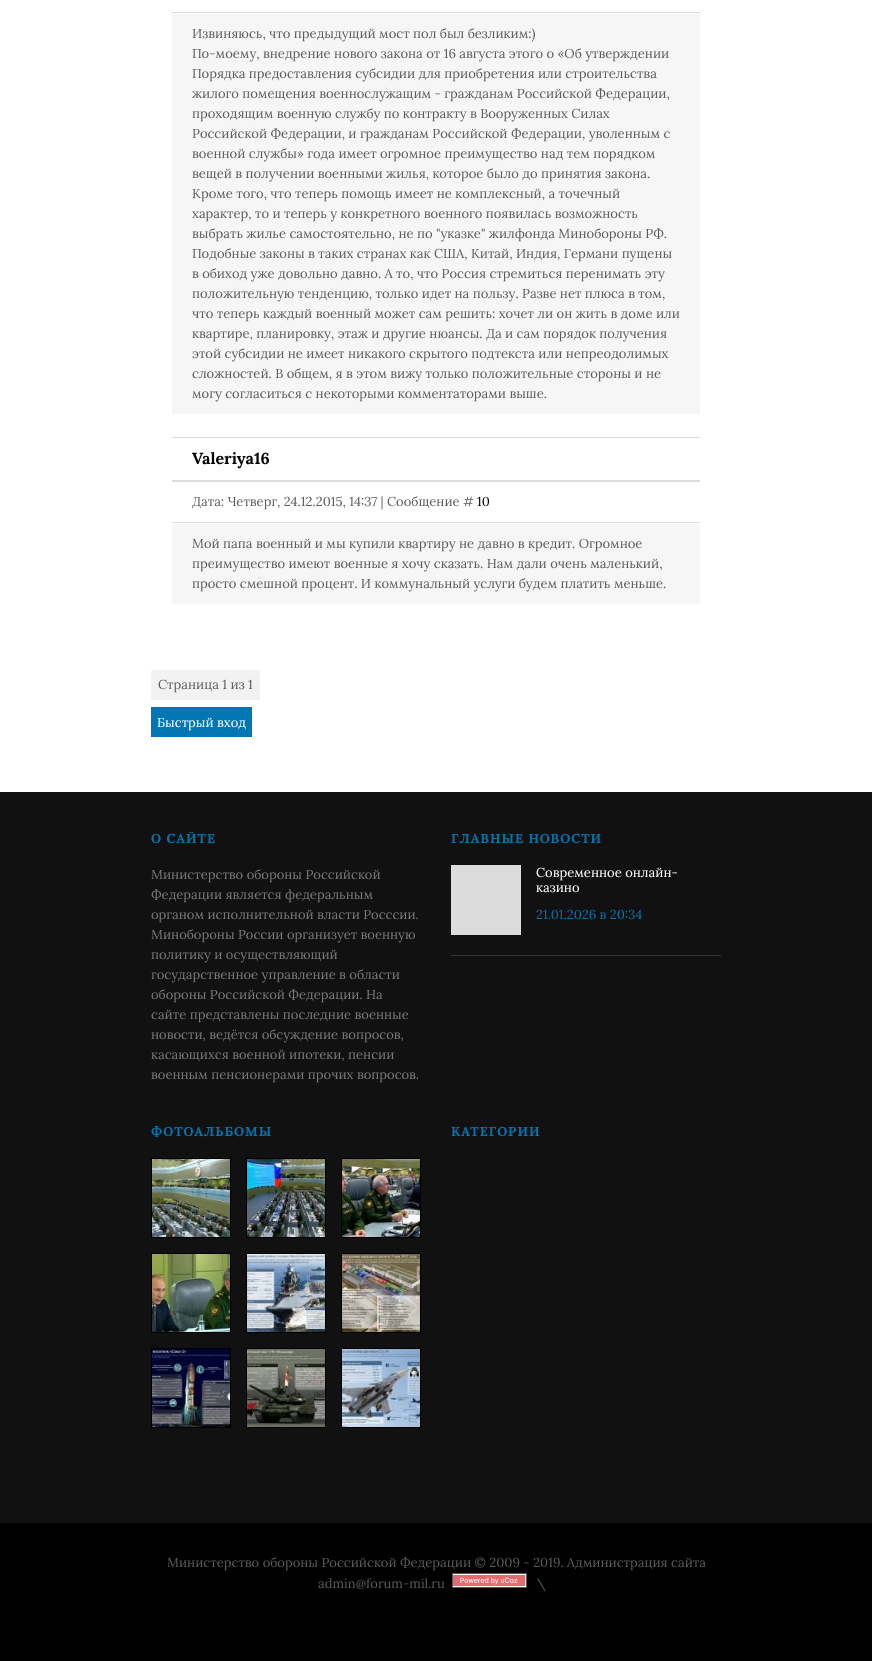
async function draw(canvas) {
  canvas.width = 872
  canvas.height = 1661
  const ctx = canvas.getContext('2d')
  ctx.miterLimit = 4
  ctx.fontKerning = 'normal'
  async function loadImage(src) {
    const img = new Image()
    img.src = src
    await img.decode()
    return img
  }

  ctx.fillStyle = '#fff'
  ctx.fillRect(0, 0, 872, 1661)
  ctx.fillStyle = '#dcdcdc'
  ctx.fillRect(172, 12, 528, 1)
  ctx.fillStyle = '#f6f6f6'
  ctx.fillRect(172, 14, 528, 400)
  ctx.font = '13px Lora'
  ctx.fillStyle = '#5c5c5c'
  ctx.fillText('Извиняюсь, что предыдущий мост пол был безликим:)', 192, 38)
  ctx.fillText('По-моему, внедрение нового закона от 16 августа этого о «Об утверждении', 192, 58)
  ctx.fillText('Порядка предоставления субсидии для приобретения или строительства', 192, 78)
  ctx.fillText('жилого помещения военнослужащим - гражданам Российской Федерации,', 192, 98)
  ctx.fillText('проходящим военную службу по контракту в Вооруженных Силах', 192, 118)
  ctx.fillText('Российской Федерации, и гражданам Российской Федерации, уволенным с', 192, 138)
  ctx.fillText('военной службы» года имеет огромное преимущество над тем порядком', 192, 158)
  ctx.fillText('вещей в получении военными жилья, которое было до принятия закона.', 192, 178)
  ctx.fillText('Кроме того, что теперь помощь имеет не комплексный, а точечный', 192, 198)
  ctx.fillText('характер, то и теперь у конкретного военного появилась возможность', 192, 218)
  ctx.fillText('выбрать жилье самостоятельно, не по "указке" жилфонда Минобороны РФ.', 192, 238)
  ctx.fillText('Подобные законы в таких странах как США, Китай, Индия, Германи пущены', 192, 258)
  ctx.fillText('в обиход уже довольно давно. А то, что Россия стремиться перенимать эту', 192, 278)
  ctx.fillText('положительную тенденцию, только идет на пользу. Разве нет плюса в том,', 192, 298)
  ctx.fillText('что теперь каждый военный может сам решить: хочет ли он жить в доме или', 192, 318)
  ctx.fillText('квартире, планировку, этаж и другие нюансы. Да и сам порядок получения', 192, 338)
  ctx.fillText('этой субсидии не имеет никакого скрытого подтекста или непреодолимых', 192, 358)
  ctx.fillText('сложностей. В общем, я в этом вижу только положительные стороны и не', 192, 378)
  ctx.fillText('могу согласиться с некоторыми комментаторами выше.', 192, 398)
  ctx.fillStyle = '#dcdcdc'
  ctx.fillRect(172, 437, 528, 1)
  ctx.fillRect(172, 480, 528, 2)
  ctx.font = 'bold 16px Lora'
  ctx.fillStyle = '#000'
  ctx.fillText('Valeriya16', 192, 464)
  ctx.fillStyle = '#dcdcdc'
  ctx.fillRect(172, 522, 528, 1)
  ctx.font = '13px Lora'
  ctx.fillStyle = '#5c5c5c'
  ctx.fillText('Дата: Четверг, 24.12.2015, 14:37 | Сообщение #', 192, 506)
  ctx.fillStyle = '#000'
  ctx.fillText('10', 477, 506)
  ctx.fillStyle = '#f6f6f6'
  ctx.fillRect(172, 524, 528, 80)
  ctx.fillStyle = '#5c5c5c'
  ctx.fillText('Мой папа военный и мы купили квартиру не давно в кредит. Огромное', 192, 548)
  ctx.fillText('преимущество имеют военные я хочу сказать. Нам дали очень маленький,', 192, 568)
  ctx.fillText('просто смешной процент. И коммунальный услуги будем платить меньше.', 192, 588)
  ctx.fillStyle = '#f2f2f2'
  ctx.beginPath()
  ctx.roundRect(151, 670, 109, 30, [2, 0, 0, 2])
  ctx.fill()
  ctx.fillStyle = '#5c5c5c'
  ctx.fillText('Страница 1 из 1', 158, 689)
  ctx.fillStyle = '#0077b3'
  ctx.fillRect(151, 707, 101, 30)
  ctx.fillStyle = '#fff'
  ctx.fillText('Быстрый вход', 157, 727)
  ctx.fillStyle = '#111'
  ctx.fillRect(0, 792, 872, 731)
  ctx.save()
  ctx.beginPath()
  ctx.rect(151, 832, 270, 293)
  ctx.clip()
  ctx.letterSpacing = '1px'
  ctx.font = 'bold 13px Lora'
  ctx.fillStyle = '#0077b3'
  ctx.fillText('О САЙТЕ', 151, 843)
  ctx.restore()
  ctx.fillStyle = '#7a7a7a'
  ctx.fillText('Министерство обороны Российской', 151, 879)
  ctx.fillText('Федерации является федеральным', 151, 899)
  ctx.fillText('органом исполнительной власти Росссии.', 151, 919)
  ctx.fillText('Минобороны России организует военную', 151, 939)
  ctx.fillText('политику и осуществляющий', 151, 959)
  ctx.fillText('государственное управление в области', 151, 979)
  ctx.fillText('обороны Российской Федерации. На', 151, 999)
  ctx.fillText('сайте представлены последние военные', 151, 1019)
  ctx.fillText('новости, ведётся обсуждение вопросов,', 151, 1039)
  ctx.fillText('касающихся военной ипотеки, пенсии', 151, 1059)
  ctx.fillText('военным пенсионерами прочих вопросов.', 151, 1079)
  ctx.letterSpacing = '1px'
  ctx.font = 'bold 13px Lora'
  ctx.fillStyle = '#0077b3'
  ctx.fillText('ГЛАВНЫЕ НОВОСТИ', 451, 843)
  ctx.fillStyle = '#323232'
  ctx.fillRect(451, 955, 270, 1)
  ctx.fillStyle = '#dcdcdc'
  ctx.fillRect(451, 865, 70, 70)
  ctx.letterSpacing = '0px'
  ctx.font = '13px Lora'
  ctx.fillStyle = '#fff'
  ctx.fillText('Современное онлайн-', 536, 877)
  ctx.fillText('казино', 536, 892)
  ctx.fillStyle = '#0077b3'
  ctx.fillText('21.01.2026 в 20:34', 536, 919)
  ctx.letterSpacing = '1px'
  ctx.font = 'bold 13px Lora'
  ctx.fillText('ФОТОАЛЬБОМЫ', 151, 1136)
  ctx.drawImage(await loadImage('image0.png'), 152, 1159, 78, 78)
  ctx.strokeStyle = '#000'
  ctx.strokeRect(151.5, 1158.5, 79, 79)
  ctx.drawImage(await loadImage('image1.png'), 247, 1159, 78, 78)
  ctx.strokeRect(246.5, 1158.5, 79, 79)
  ctx.drawImage(await loadImage('image2.png'), 342, 1159, 78, 78)
  ctx.strokeRect(341.5, 1158.5, 79, 79)
  ctx.drawImage(await loadImage('image3.png'), 152, 1254, 78, 78)
  ctx.strokeRect(151.5, 1253.5, 79, 79)
  ctx.drawImage(await loadImage('image4.png'), 247, 1254, 78, 78)
  ctx.strokeRect(246.5, 1253.5, 79, 79)
  ctx.drawImage(await loadImage('image5.png'), 342, 1254, 78, 78)
  ctx.strokeRect(341.5, 1253.5, 79, 79)
  ctx.drawImage(await loadImage('image6.png'), 152, 1349, 78, 78)
  ctx.strokeRect(151.5, 1348.5, 79, 79)
  ctx.drawImage(await loadImage('image7.png'), 247, 1349, 78, 78)
  ctx.strokeRect(246.5, 1348.5, 79, 79)
  ctx.drawImage(await loadImage('image8.png'), 342, 1349, 78, 78)
  ctx.strokeRect(341.5, 1348.5, 79, 79)
  ctx.fillText('КАТЕГОРИИ', 451, 1136)
  ctx.fillStyle = '#000'
  ctx.fillRect(0, 1523, 872, 138)
  ctx.letterSpacing = '0px'
  ctx.font = '13px Lora'
  ctx.fillStyle = '#5c5c5c'
  ctx.fillText('Министерство обороны Российской Федерации © 2009 - 2019. Администрация сайта', 167, 1567)
  ctx.fillText('admin@forum-mil.ru', 318, 1588)
  ctx.drawImage(await loadImage('image9.png'), 452, 1573, 75, 15)
  ctx.fillText('\\', 537, 1588)
}

draw(document.querySelector('canvas'))
